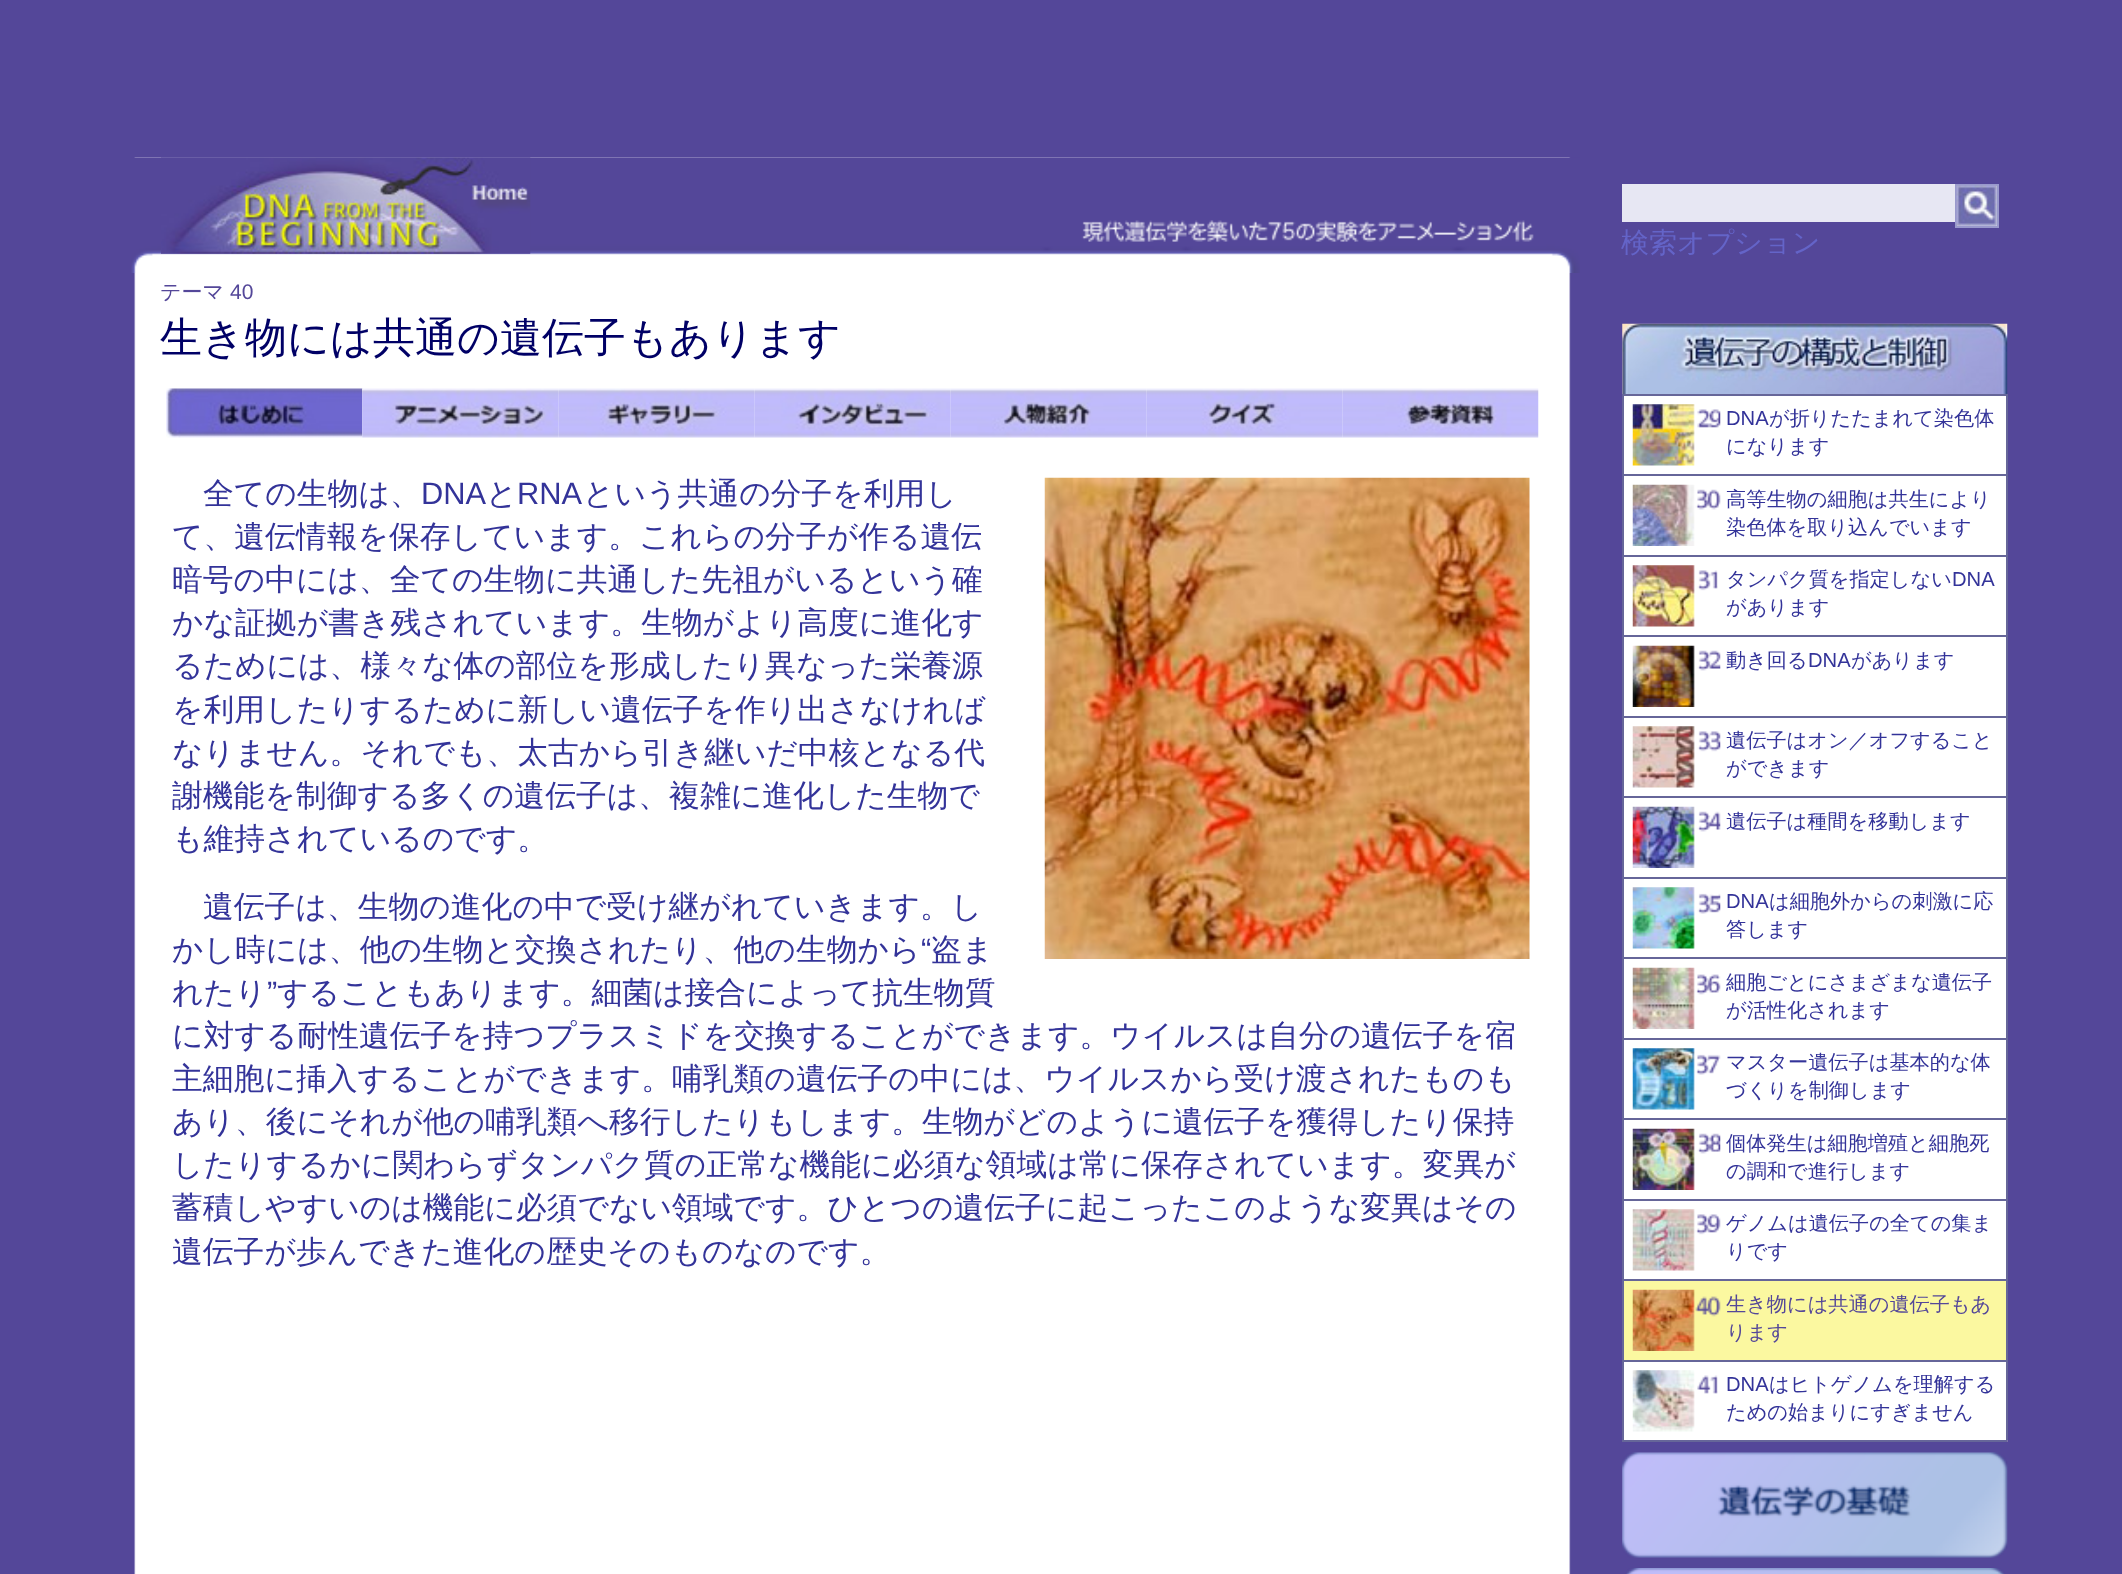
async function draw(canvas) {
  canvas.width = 2122
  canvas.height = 1574
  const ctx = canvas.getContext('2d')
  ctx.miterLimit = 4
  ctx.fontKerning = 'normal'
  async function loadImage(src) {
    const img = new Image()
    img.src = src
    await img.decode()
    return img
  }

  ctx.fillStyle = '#544799'
  ctx.fillRect(0, 0, 2122, 1574)
  ctx.drawImage(await loadImage('image0.png'), 134, 157, 1437, 1417)
  ctx.fillRect(134, 158, 1437, 115)
  ctx.drawImage(await loadImage('image1.png'), 131, 157, 1449, 116)
  ctx.drawImage(await loadImage('image2.png'), 161, 157, 370, 97)
  ctx.font = '500 21px WenQuanYi Zen Hei'
  ctx.fillText('テーマ', 160, 299)
  ctx.font = '21px Liberation Sans'
  ctx.fillText('40', 230, 299)
  ctx.font = '500 42px WenQuanYi Zen Hei'
  ctx.fillStyle = '#006'
  ctx.fillText('生き物には共通の遺伝子もあります', 160, 352)
  ctx.drawImage(await loadImage('image3.png'), 166, 388, 197, 50)
  ctx.drawImage(await loadImage('image4.png'), 362, 388, 197, 50)
  ctx.drawImage(await loadImage('image5.png'), 558, 388, 197, 50)
  ctx.drawImage(await loadImage('image6.png'), 754, 388, 197, 50)
  ctx.drawImage(await loadImage('image7.png'), 950, 388, 197, 50)
  ctx.drawImage(await loadImage('image8.png'), 1146, 388, 197, 50)
  ctx.drawImage(await loadImage('image9.png'), 1342, 388, 197, 50)
  ctx.font = '500 30.8px WenQuanYi Zen Hei'
  ctx.fillStyle = '#339'
  ctx.fillText('全ての生物は、', 203, 504)
  ctx.font = '30.8px Liberation Sans'
  ctx.fillText('DNA', 421, 504)
  ctx.font = '500 30.8px WenQuanYi Zen Hei'
  ctx.fillText('と', 486, 504)
  ctx.font = '30.8px Liberation Sans'
  ctx.fillText('RNA', 517, 504)
  ctx.font = '500 30.8px WenQuanYi Zen Hei'
  ctx.fillText('という共通の分子を利用し', 583, 504)
  ctx.fillText('て、遺伝情報を保存しています。これらの分子が作る遺伝', 172, 547)
  ctx.fillText('暗号の中には、全ての生物に共通した先祖がいるという確', 172, 590)
  ctx.fillText('かな証拠が書き残されています。生物がより高度に進化す', 172, 633)
  ctx.fillText('るためには、様々な体の部位を形成したり異なった栄養源', 172, 676)
  ctx.fillText('を利用したりするために新しい遺伝子を作り出さなければ', 172, 720)
  ctx.fillText('なりません。それでも、太古から引き継いだ中核となる代', 172, 763)
  ctx.fillText('謝機能を制御する多くの遺伝子は、複雑に進化した生物で', 172, 806)
  ctx.fillText('も維持されているのです。', 172, 849)
  ctx.drawImage(await loadImage('image10.png'), 1044, 477, 486, 482)
  ctx.fillText('遺伝子は、生物の進化の中で受け継がれていきます。し', 203, 917)
  ctx.fillText('かし時には、他の生物と交換されたり、他の生物から', 172, 960)
  ctx.font = '30.8px Liberation Sans'
  ctx.fillText('“', 921, 960)
  ctx.font = '500 30.8px WenQuanYi Zen Hei'
  ctx.fillText('盗ま', 931, 960)
  ctx.fillText('れたり', 172, 1003)
  ctx.font = '30.8px Liberation Sans'
  ctx.fillText('”', 267, 1003)
  ctx.font = '500 30.8px WenQuanYi Zen Hei'
  ctx.fillText('することもあります。細菌は接合によって抗生物質', 277, 1003)
  ctx.fillText('に対する耐性遺伝子を持つプラスミドを交換することができます。ウイルスは自分の遺伝子を宿', 172, 1046)
  ctx.fillText('主細胞に挿入することができます。哺乳類の遺伝子の中には、ウイルスから受け渡されたものも', 172, 1089)
  ctx.fillText('あり、後にそれが他の哺乳類へ移行したりもします。生物がどのように遺伝子を獲得したり保持', 172, 1132)
  ctx.fillText('したりするかに関わらずタンパク質の正常な機能に必須な領域は常に保存されています。変異が', 172, 1175)
  ctx.fillText('蓄積しやすいのは機能に必須でない領域です。ひとつの遺伝子に起こったこのような変異はその', 172, 1218)
  ctx.fillText('遺伝子が歩んできた進化の歴史そのものなのです。', 172, 1262)
  ctx.fillStyle = '#e7e7f3'
  ctx.fillRect(1622, 184, 333, 38)
  ctx.beginPath()
  ctx.rect(1956, 185, 42, 42)
  ctx.fill()
  ctx.strokeStyle = '#99c'
  ctx.lineWidth = 2
  ctx.stroke()
  ctx.drawImage(await loadImage('image11.png'), 1956, 185, 41, 41)
  ctx.font = '500 28px WenQuanYi Zen Hei'
  ctx.fillStyle = '#6464c8'
  ctx.fillText('検索オプション', 1621, 252)
  ctx.drawImage(await loadImage('image12.png'), 1622, 323, 386, 1119)
  ctx.fillStyle = '#fff'
  ctx.fillRect(1624, 396, 382, 78)
  ctx.fillStyle = '#669'
  ctx.fillRect(1622, 394, 385, 2)
  ctx.fillRect(2006, 394, 2, 80)
  ctx.fillRect(1622, 394, 2, 80)
  ctx.drawImage(await loadImage('image13.png'), 1632, 404, 89, 62)
  ctx.font = '20.2px Liberation Sans'
  ctx.fillStyle = '#339'
  ctx.fillText('DNA', 1726, 425)
  ctx.font = '500 20.2px WenQuanYi Zen Hei'
  ctx.fillText('が折りたたまれて染色体', 1769, 425)
  ctx.fillText('になります', 1726, 453)
  ctx.fillStyle = '#fff'
  ctx.fillRect(1624, 476, 382, 79)
  ctx.fillStyle = '#669'
  ctx.fillRect(1622, 474, 385, 2)
  ctx.fillRect(2006, 474, 2, 81)
  ctx.fillRect(1622, 474, 2, 81)
  ctx.drawImage(await loadImage('image14.png'), 1632, 484, 89, 62)
  ctx.fillStyle = '#339'
  ctx.fillText('高等生物の細胞は共生により', 1726, 506)
  ctx.fillText('染色体を取り込んでいます', 1726, 534)
  ctx.fillStyle = '#fff'
  ctx.fillRect(1624, 557, 382, 78)
  ctx.fillStyle = '#669'
  ctx.fillRect(1622, 555, 385, 2)
  ctx.fillRect(2006, 555, 2, 80)
  ctx.fillRect(1622, 555, 2, 80)
  ctx.drawImage(await loadImage('image15.png'), 1632, 565, 86, 62)
  ctx.fillStyle = '#339'
  ctx.fillText('タンパク質を指定しない', 1726, 586)
  ctx.font = '20.2px Liberation Sans'
  ctx.fillText('DNA', 1952, 586)
  ctx.font = '500 20.2px WenQuanYi Zen Hei'
  ctx.fillText('があります', 1726, 614)
  ctx.fillStyle = '#fff'
  ctx.fillRect(1624, 637, 382, 79)
  ctx.fillStyle = '#669'
  ctx.fillRect(1622, 635, 385, 2)
  ctx.fillRect(2006, 635, 2, 81)
  ctx.fillRect(1622, 635, 2, 81)
  ctx.drawImage(await loadImage('image16.png'), 1632, 645, 89, 62)
  ctx.fillStyle = '#339'
  ctx.fillText('動き回る', 1726, 667)
  ctx.font = '20.2px Liberation Sans'
  ctx.fillText('DNA', 1808, 667)
  ctx.font = '500 20.2px WenQuanYi Zen Hei'
  ctx.fillText('があります', 1851, 667)
  ctx.fillStyle = '#fff'
  ctx.fillRect(1624, 718, 382, 78)
  ctx.fillStyle = '#669'
  ctx.fillRect(1622, 716, 385, 2)
  ctx.fillRect(2006, 716, 2, 80)
  ctx.fillRect(1622, 716, 2, 80)
  ctx.drawImage(await loadImage('image17.png'), 1632, 726, 89, 62)
  ctx.fillStyle = '#339'
  ctx.fillText('遺伝子はオン／オフすること', 1726, 747)
  ctx.fillText('ができます', 1726, 775)
  ctx.fillStyle = '#fff'
  ctx.fillRect(1624, 798, 382, 79)
  ctx.fillStyle = '#669'
  ctx.fillRect(1622, 796, 385, 2)
  ctx.fillRect(2006, 796, 2, 81)
  ctx.fillRect(1622, 796, 2, 81)
  ctx.drawImage(await loadImage('image18.png'), 1632, 806, 89, 62)
  ctx.fillStyle = '#339'
  ctx.fillText('遺伝子は種間を移動します', 1726, 828)
  ctx.fillStyle = '#fff'
  ctx.fillRect(1624, 879, 382, 78)
  ctx.fillStyle = '#669'
  ctx.fillRect(1622, 877, 385, 2)
  ctx.fillRect(2006, 877, 2, 80)
  ctx.fillRect(1622, 877, 2, 80)
  ctx.drawImage(await loadImage('image19.png'), 1632, 887, 89, 62)
  ctx.font = '20.2px Liberation Sans'
  ctx.fillStyle = '#339'
  ctx.fillText('DNA', 1726, 908)
  ctx.font = '500 20.2px WenQuanYi Zen Hei'
  ctx.fillText('は細胞外からの刺激に応', 1769, 908)
  ctx.fillText('答します', 1726, 936)
  ctx.fillStyle = '#fff'
  ctx.fillRect(1624, 959, 382, 79)
  ctx.fillStyle = '#669'
  ctx.fillRect(1622, 957, 385, 2)
  ctx.fillRect(2006, 957, 2, 81)
  ctx.fillRect(1622, 957, 2, 81)
  ctx.drawImage(await loadImage('image20.png'), 1632, 967, 89, 62)
  ctx.fillStyle = '#339'
  ctx.fillText('細胞ごとにさまざまな遺伝子', 1726, 989)
  ctx.fillText('が活性化されます', 1726, 1017)
  ctx.fillStyle = '#fff'
  ctx.fillRect(1624, 1040, 382, 78)
  ctx.fillStyle = '#669'
  ctx.fillRect(1622, 1038, 385, 2)
  ctx.fillRect(2006, 1038, 2, 80)
  ctx.fillRect(1622, 1038, 2, 80)
  ctx.drawImage(await loadImage('image21.png'), 1632, 1048, 89, 62)
  ctx.fillStyle = '#339'
  ctx.fillText('マスター遺伝子は基本的な体', 1726, 1069)
  ctx.fillText('づくりを制御します', 1726, 1097)
  ctx.fillStyle = '#fff'
  ctx.fillRect(1624, 1120, 382, 79)
  ctx.fillStyle = '#669'
  ctx.fillRect(1622, 1118, 385, 2)
  ctx.fillRect(2006, 1118, 2, 81)
  ctx.fillRect(1622, 1118, 2, 81)
  ctx.drawImage(await loadImage('image22.png'), 1632, 1128, 89, 62)
  ctx.fillStyle = '#339'
  ctx.fillText('個体発生は細胞増殖と細胞死', 1726, 1150)
  ctx.fillText('の調和で進行します', 1726, 1178)
  ctx.fillStyle = '#fff'
  ctx.fillRect(1624, 1201, 382, 78)
  ctx.fillStyle = '#669'
  ctx.fillRect(1622, 1199, 385, 2)
  ctx.fillRect(2006, 1199, 2, 80)
  ctx.fillRect(1622, 1199, 2, 80)
  ctx.drawImage(await loadImage('image23.png'), 1632, 1209, 89, 62)
  ctx.fillStyle = '#339'
  ctx.fillText('ゲノムは遺伝子の全ての集ま', 1726, 1230)
  ctx.fillText('りです', 1726, 1258)
  ctx.fillStyle = '#fbf8a0'
  ctx.fillRect(1624, 1281, 382, 79)
  ctx.fillStyle = '#669'
  ctx.fillRect(1622, 1279, 385, 2)
  ctx.fillRect(2006, 1279, 2, 81)
  ctx.fillRect(1622, 1279, 2, 81)
  ctx.drawImage(await loadImage('image24.png'), 1632, 1289, 89, 62)
  ctx.fillStyle = '#544799'
  ctx.fillText('生き物には共通の遺伝子もあ', 1726, 1311)
  ctx.fillText('ります', 1726, 1339)
  ctx.fillStyle = '#669'
  ctx.fillRect(1622, 1440, 385, 2)
  ctx.fillStyle = '#fff'
  ctx.fillRect(1624, 1362, 382, 78)
  ctx.fillStyle = '#669'
  ctx.fillRect(1622, 1360, 385, 2)
  ctx.fillRect(2006, 1360, 2, 80)
  ctx.fillRect(1622, 1360, 2, 80)
  ctx.drawImage(await loadImage('image25.png'), 1632, 1370, 86, 62)
  ctx.font = '20.2px Liberation Sans'
  ctx.fillStyle = '#339'
  ctx.fillText('DNA', 1726, 1391)
  ctx.font = '500 20.2px WenQuanYi Zen Hei'
  ctx.fillText('はヒトゲノムを理解する', 1769, 1391)
  ctx.fillText('ための始まりにすぎません', 1726, 1419)
  ctx.drawImage(await loadImage('image26.png'), 1622, 1452, 386, 106)
  ctx.drawImage(await loadImage('image27.png'), 1626, 1568, 379, 6)
}

draw(document.querySelector('canvas'))
